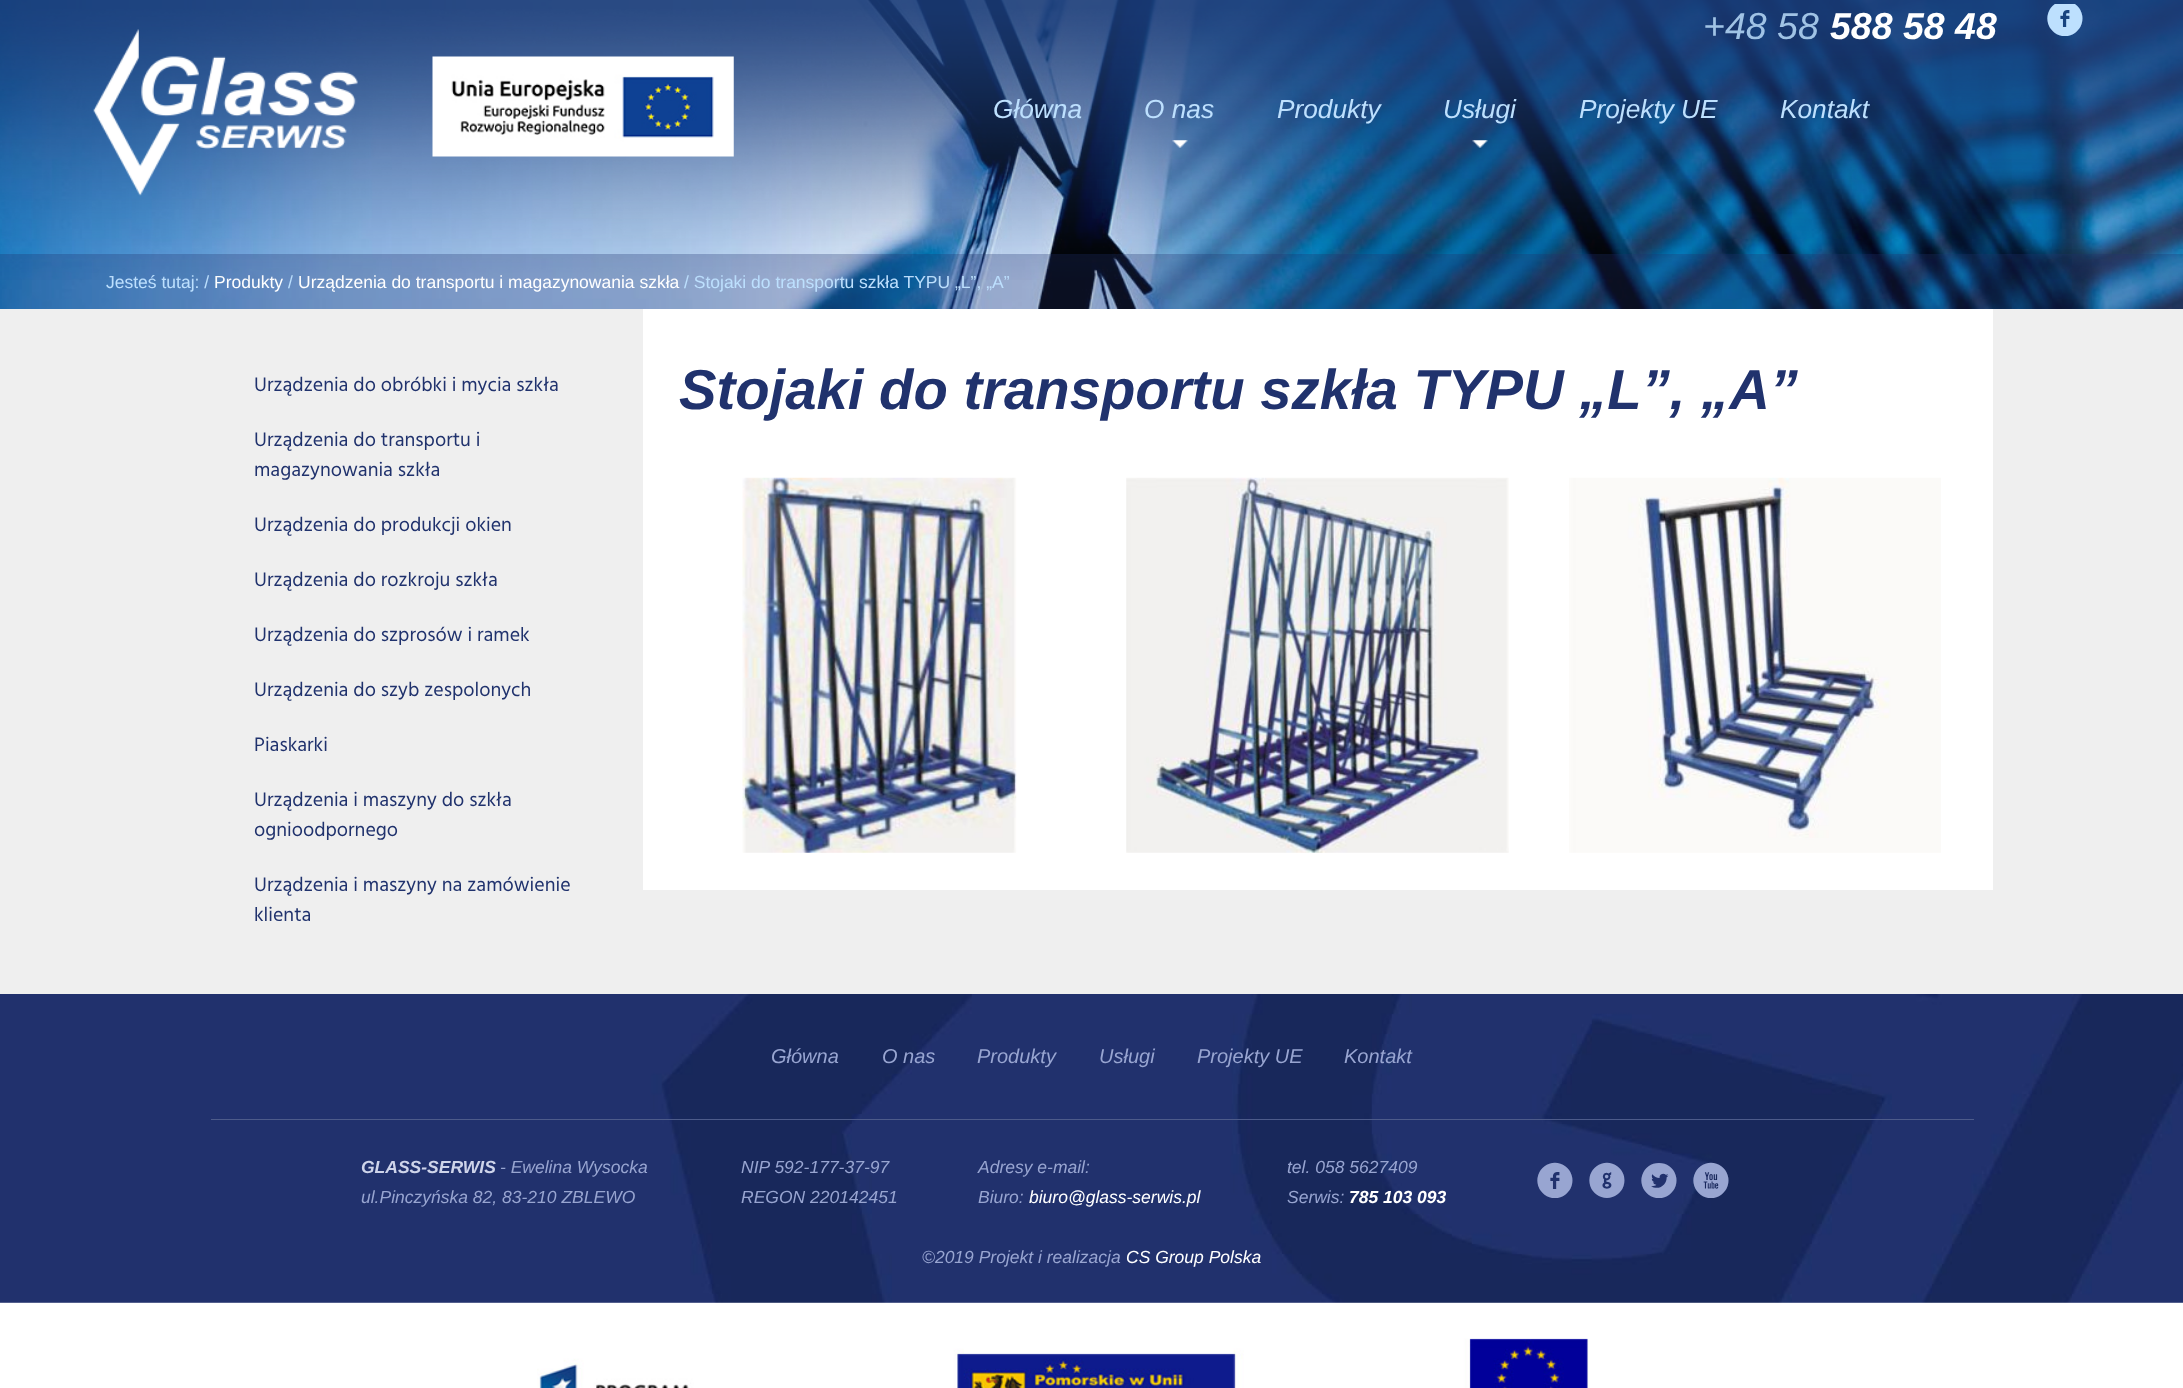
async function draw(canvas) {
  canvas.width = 2183
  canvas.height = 1388
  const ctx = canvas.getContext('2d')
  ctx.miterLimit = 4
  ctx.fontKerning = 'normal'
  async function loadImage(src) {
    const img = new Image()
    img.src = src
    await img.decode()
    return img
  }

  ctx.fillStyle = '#efefef'
  ctx.fillRect(0, 0, 2183, 1388)
  ctx.drawImage(await loadImage('image5.png'), 0, 0, 2183, 309)
  ctx.fillStyle = '#20326d4d'
  ctx.fillRect(0, 254, 2183, 55)
  ctx.font = '17.5px Liberation Sans'
  ctx.fillStyle = '#bde0fe'
  ctx.fillText('Jesteś tutaj: /', 106, 288)
  ctx.fillStyle = '#fff'
  ctx.fillText('Produkty', 214, 288)
  ctx.fillStyle = '#bde0fe'
  ctx.fillText('/', 288, 288)
  ctx.fillStyle = '#fff'
  ctx.fillText('Urządzenia do transportu i magazynowania szkła', 298, 288)
  ctx.fillStyle = '#bde0fe'
  ctx.fillText('/ Stojaki do transportu szkła TYPU „L”, „A”', 684, 288)
  ctx.drawImage(await loadImage('image0.png'), 0, 0, 2183, 280)
  ctx.drawImage(await loadImage('image1.png'), 93, 29, 265, 167)
  ctx.drawImage(await loadImage('image2.png'), 432, 56, 302, 101)
  ctx.font = 'italic 37.5px Liberation Sans'
  ctx.fillStyle = '#a0c3e5'
  ctx.fillText('+48 58', 1703, 39)
  ctx.font = 'italic bold 37.5px Liberation Sans'
  ctx.fillStyle = '#fff'
  ctx.fillText('588 58 48', 1830, 39)
  ctx.save()
  ctx.beginPath()
  ctx.rect(2040, 4, 50, 49)
  ctx.clip()
  ctx.font = '50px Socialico'
  ctx.fillStyle = '#bde0fe'
  ctx.fillText('f', 2045, 36)
  ctx.restore()
  ctx.font = 'italic 26.25px Liberation Sans'
  ctx.fillStyle = '#bde0fe'
  ctx.fillText('Główna', 993, 118)
  ctx.fillText('O nas', 1144, 118)
  ctx.drawImage(await loadImage('image3.png'), 1172, 140, 16, 8)
  ctx.fillText('Produkty', 1277, 118)
  ctx.fillText('Usługi', 1443, 118)
  ctx.drawImage(await loadImage('image4.png'), 1472, 140, 16, 8)
  ctx.fillText('Projekty UE', 1579, 118)
  ctx.fillText('Kontakt', 1780, 118)
  ctx.font = '20px Hind'
  ctx.fillStyle = '#20326d'
  ctx.fillText('Urządzenia do obróbki i mycia szkła', 254, 391)
  ctx.fillText('Urządzenia do transportu i', 254, 446)
  ctx.fillText('magazynowania szkła', 254, 476)
  ctx.fillText('Urządzenia do produkcji okien', 254, 531)
  ctx.fillText('Urządzenia do rozkroju szkła', 254, 586)
  ctx.fillText('Urządzenia do szprosów i ramek', 254, 641)
  ctx.fillText('Urządzenia do szyb zespolonych', 254, 696)
  ctx.fillText('Piaskarki', 254, 751)
  ctx.fillText('Urządzenia i maszyny do szkła', 254, 806)
  ctx.fillText('ognioodpornego', 254, 836)
  ctx.fillText('Urządzenia i maszyny na zamówienie', 254, 891)
  ctx.fillText('klienta', 254, 921)
  ctx.fillStyle = '#fff'
  ctx.fillRect(643, 309, 1350, 581)
  ctx.font = 'italic bold 56.25px Liberation Sans'
  ctx.fillStyle = '#20326d'
  ctx.fillText('Stojaki do transportu szkła TYPU „L”, „A”', 679, 409)
  ctx.drawImage(await loadImage('image6.png'), 742, 477, 275, 376)
  ctx.drawImage(await loadImage('image7.png'), 1126, 477, 383, 376)
  ctx.drawImage(await loadImage('image8.png'), 1569, 477, 372, 376)
  ctx.drawImage(await loadImage('image9.png'), 0, 994, 2183, 309)
  ctx.fillStyle = '#4d5b8a'
  ctx.fillRect(211, 1119, 1763, 1)
  ctx.font = 'italic 20px Liberation Sans'
  ctx.fillStyle = '#98a5d1'
  ctx.fillText('Główna', 771, 1063)
  ctx.fillText('O nas', 882, 1063)
  ctx.fillText('Produkty', 977, 1063)
  ctx.fillText('Usługi', 1099, 1063)
  ctx.fillText('Projekty UE', 1197, 1063)
  ctx.fillText('Kontakt', 1344, 1063)
  ctx.font = 'italic bold 17.5px Liberation Sans'
  ctx.fillStyle = '#ced4ea'
  ctx.fillText('GLASS-SERWIS', 361, 1173)
  ctx.font = 'italic 17.5px Liberation Sans'
  ctx.fillStyle = '#98a5d1'
  ctx.fillText('- Ewelina Wysocka', 500, 1173)
  ctx.fillText('ul.Pinczyńska 82, 83-210 ZBLEWO', 361, 1203)
  ctx.fillText('NIP 592-177-37-97', 741, 1173)
  ctx.fillText('REGON 220142451', 741, 1203)
  ctx.fillText('Adresy e-mail:', 978, 1173)
  ctx.fillText('Biuro:', 978, 1203)
  ctx.fillStyle = '#fff'
  ctx.fillText('biuro@glass-serwis.pl', 1029, 1203)
  ctx.fillStyle = '#98a5d1'
  ctx.fillText('tel. 058 5627409', 1287, 1173)
  ctx.fillText('Serwis:', 1287, 1203)
  ctx.font = 'italic bold 17.5px Liberation Sans'
  ctx.fillStyle = '#fff'
  ctx.fillText('785 103 093', 1349, 1203)
  ctx.font = '50px Socialico'
  ctx.fillStyle = '#98a5d1'
  ctx.fillText('f', 1535, 1198)
  ctx.fillText('g', 1587, 1198)
  ctx.fillText('l', 1639, 1198)
  ctx.fillText('x', 1691, 1198)
  ctx.font = 'italic 17.5px Liberation Sans'
  ctx.fillText('©2019 Projekt i realizacja', 922, 1263)
  ctx.fillStyle = '#fff'
  ctx.fillText('CS Group Polska', 1126, 1263)
  ctx.fillRect(0, 1303, 2183, 85)
  ctx.drawImage(await loadImage('image10.png'), 537, 1338, 1052, 50)
}

draw(document.querySelector('canvas'))
